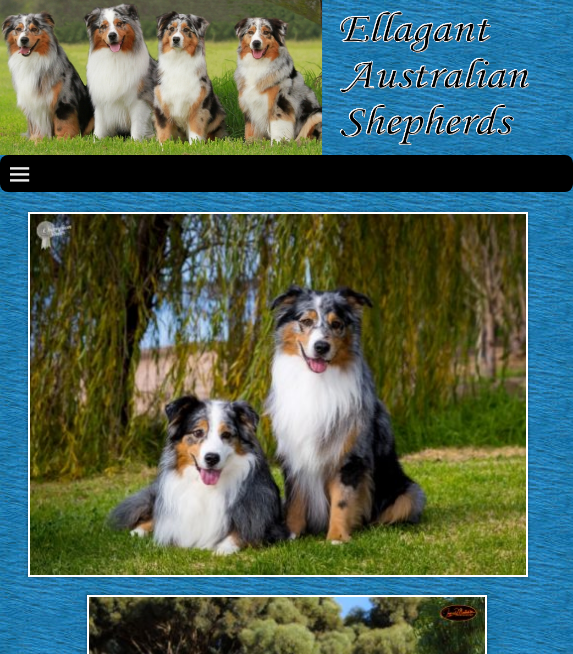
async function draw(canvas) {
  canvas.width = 573
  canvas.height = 654
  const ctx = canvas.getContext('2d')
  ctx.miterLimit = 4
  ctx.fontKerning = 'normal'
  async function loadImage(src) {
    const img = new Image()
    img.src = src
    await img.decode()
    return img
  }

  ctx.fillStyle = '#fff'
  ctx.fillRect(0, 0, 573, 654)
  ctx.drawImage(await loadImage('image0.png'), 0, 0, 573, 654)
  ctx.drawImage(await loadImage('image1.png'), 0, 0, 530, 155)
  ctx.fillStyle = '#000'
  ctx.beginPath()
  ctx.roundRect(0, 155, 573, 37, 8)
  ctx.fill()
  ctx.drawImage(await loadImage('image2.png'), 10, 167, 20, 15)
  ctx.fillStyle = '#00000040'
  ctx.filter = 'blur(1px)'
  ctx.beginPath()
  ctx.rect(27, 211, 502, 367)
  ctx.fill()
  ctx.filter = 'none'
  ctx.fillStyle = '#fff'
  ctx.fillRect(28, 212, 500, 365)
  ctx.drawImage(await loadImage('image3.png'), 30, 214, 496, 361)
  ctx.fillStyle = '#00000040'
  ctx.filter = 'blur(1px)'
  ctx.beginPath()
  ctx.rect(86, 594, 402, 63)
  ctx.fill()
  ctx.filter = 'none'
  ctx.fillStyle = '#fff'
  ctx.fillRect(87, 595, 400, 59)
  ctx.drawImage(await loadImage('image4.png'), 89, 597, 396, 57)
}

draw(document.querySelector('canvas'))
